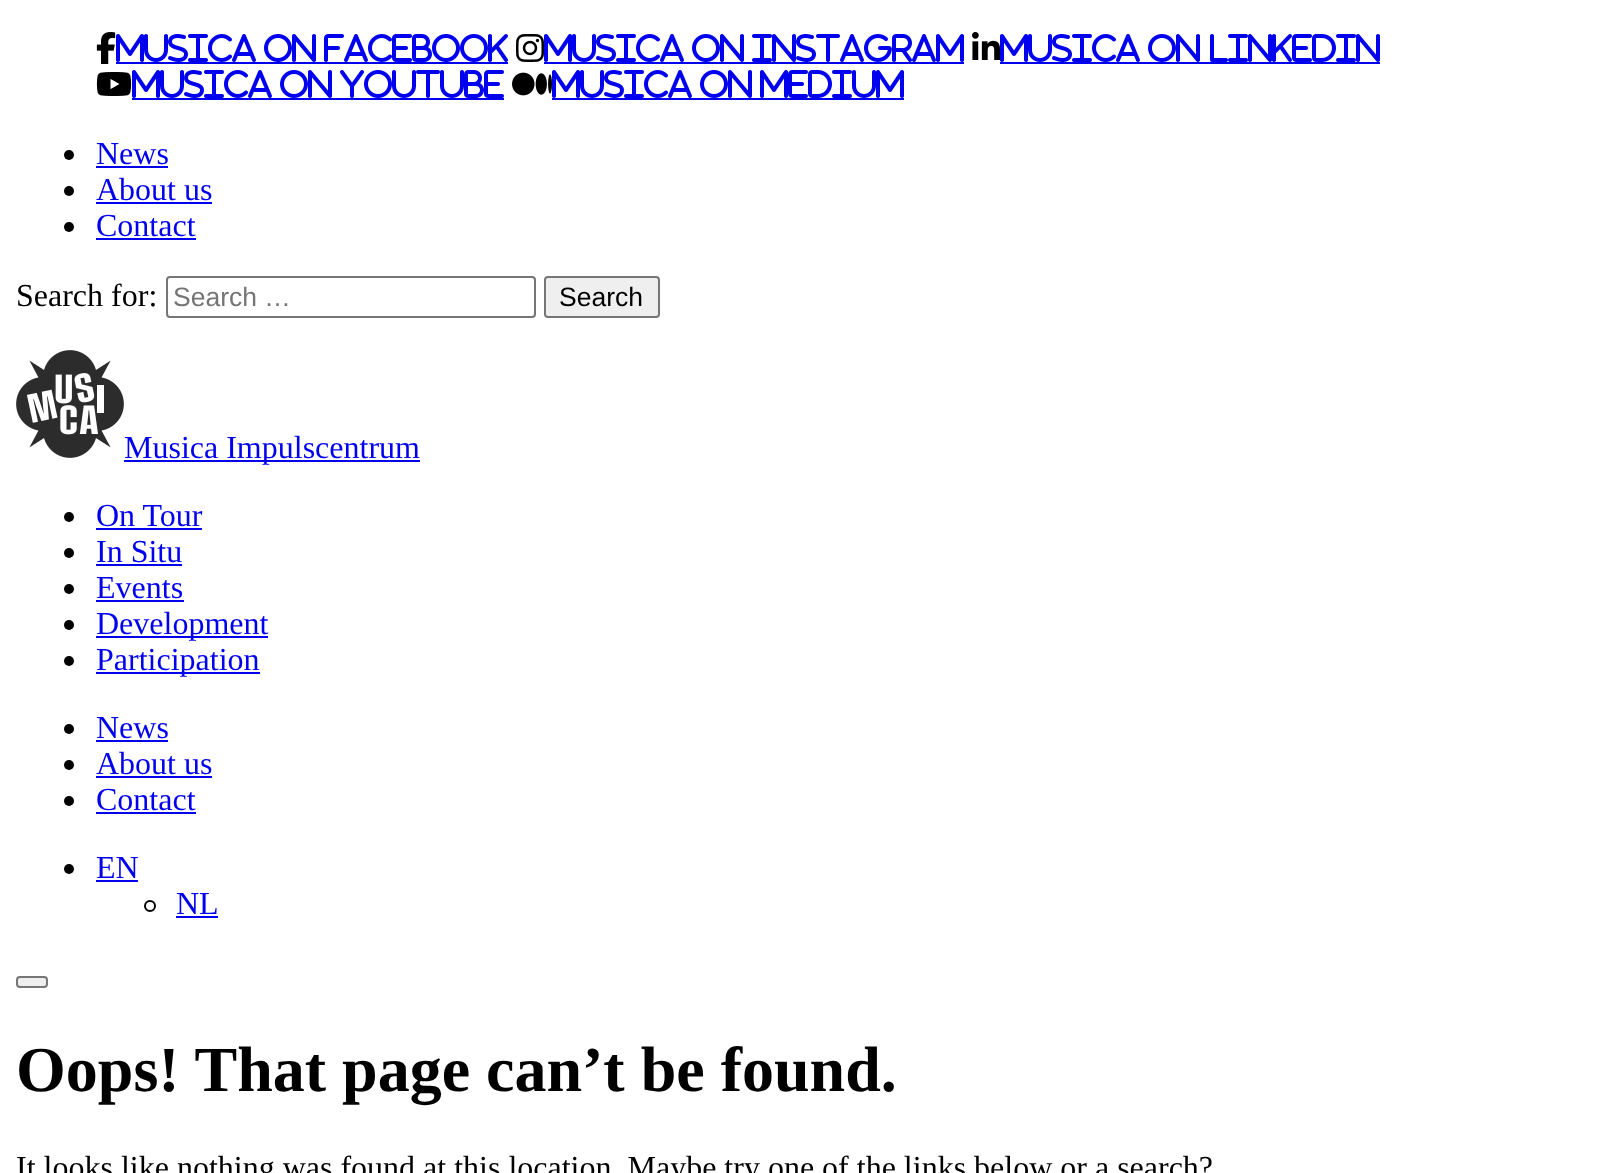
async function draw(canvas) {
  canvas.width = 1610
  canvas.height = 1173
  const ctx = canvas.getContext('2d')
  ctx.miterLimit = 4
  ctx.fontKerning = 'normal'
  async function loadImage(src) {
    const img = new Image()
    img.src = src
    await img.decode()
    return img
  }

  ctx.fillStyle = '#fff'
  ctx.fillRect(0, 0, 1610, 1173)
  ctx.drawImage(await loadImage('image0.png'), 96, 32, 20, 32)
  ctx.drawImage(await loadImage('image1.png'), 116, 34, 140, 28)
  ctx.drawImage(await loadImage('image2.png'), 264, 34, 52, 28)
  ctx.drawImage(await loadImage('image3.png'), 324, 34, 184, 28)
  ctx.fillStyle = '#00e'
  ctx.fillRect(116, 62, 392, 2)
  ctx.drawImage(await loadImage('image4.png'), 516, 34, 28, 28)
  ctx.drawImage(await loadImage('image1.png'), 544, 34, 140, 28)
  ctx.drawImage(await loadImage('image2.png'), 692, 34, 52, 28)
  ctx.drawImage(await loadImage('image5.png'), 752, 34, 212, 28)
  ctx.fillRect(544, 62, 420, 2)
  ctx.drawImage(await loadImage('image6.png'), 972, 32, 28, 28)
  ctx.drawImage(await loadImage('image1.png'), 1000, 34, 140, 28)
  ctx.drawImage(await loadImage('image2.png'), 1148, 34, 52, 28)
  ctx.drawImage(await loadImage('image7.png'), 1210, 34, 170, 28)
  ctx.fillRect(1000, 62, 380, 2)
  ctx.drawImage(await loadImage('image8.png'), 96, 72, 36, 24)
  ctx.drawImage(await loadImage('image1.png'), 132, 70, 140, 28)
  ctx.drawImage(await loadImage('image2.png'), 280, 70, 52, 28)
  ctx.drawImage(await loadImage('image9.png'), 340, 70, 164, 28)
  ctx.fillRect(132, 98, 372, 2)
  ctx.drawImage(await loadImage('image10.png'), 512, 72, 40, 24)
  ctx.drawImage(await loadImage('image1.png'), 552, 70, 140, 28)
  ctx.drawImage(await loadImage('image2.png'), 700, 70, 52, 28)
  ctx.drawImage(await loadImage('image11.png'), 760, 70, 144, 28)
  ctx.fillRect(552, 98, 352, 2)
  ctx.fillStyle = '#000'
  ctx.beginPath()
  ctx.arc(69, 155, 5, 0, 2 * Math.PI)
  ctx.fill()
  ctx.font = '32px Liberation Serif'
  ctx.fillStyle = '#00e'
  ctx.fillText('News', 96, 164)
  ctx.fillRect(96, 166, 72, 2)
  ctx.fillStyle = '#000'
  ctx.beginPath()
  ctx.arc(69, 191, 5, 0, 2 * Math.PI)
  ctx.fill()
  ctx.fillStyle = '#00e'
  ctx.fillText('About us', 96, 200)
  ctx.fillRect(96, 202, 116, 2)
  ctx.fillStyle = '#000'
  ctx.beginPath()
  ctx.arc(69, 227, 5, 0, 2 * Math.PI)
  ctx.fill()
  ctx.fillStyle = '#00e'
  ctx.fillText('Contact', 96, 236)
  ctx.fillRect(96, 238, 100, 2)
  ctx.fillStyle = '#000'
  ctx.fillText('Search for:', 16, 306)
  ctx.beginPath()
  ctx.roundRect(167, 277, 368, 40, 3)
  ctx.strokeStyle = '#767676'
  ctx.lineWidth = 2
  ctx.stroke()
  ctx.font = '26.5px Liberation Sans'
  ctx.fillStyle = '#757575'
  ctx.fillText('Search …', 173, 306)
  ctx.fillStyle = '#efefef'
  ctx.beginPath()
  ctx.roundRect(545, 277, 114, 40, 3)
  ctx.fill()
  ctx.stroke()
  ctx.fillStyle = '#000'
  ctx.fillText('Search', 559, 306)
  ctx.drawImage(await loadImage('image12.png'), 16, 350, 108, 108)
  ctx.fillStyle = '#00e'
  ctx.fillRect(124, 460, 296, 2)
  ctx.font = '32px Liberation Serif'
  ctx.fillText('Musica Impulscentrum', 124, 458)
  ctx.fillStyle = '#000'
  ctx.beginPath()
  ctx.arc(69, 517, 5, 0, 2 * Math.PI)
  ctx.fill()
  ctx.fillStyle = '#00e'
  ctx.fillText('On Tour', 96, 526)
  ctx.fillRect(96, 528, 106, 2)
  ctx.fillStyle = '#000'
  ctx.beginPath()
  ctx.arc(69, 553, 5, 0, 2 * Math.PI)
  ctx.fill()
  ctx.fillStyle = '#00e'
  ctx.fillText('In Situ', 96, 562)
  ctx.fillRect(96, 564, 86, 2)
  ctx.fillStyle = '#000'
  ctx.beginPath()
  ctx.arc(69, 589, 5, 0, 2 * Math.PI)
  ctx.fill()
  ctx.fillStyle = '#00e'
  ctx.fillText('Events', 96, 598)
  ctx.fillRect(96, 600, 88, 2)
  ctx.fillStyle = '#000'
  ctx.beginPath()
  ctx.arc(69, 625, 5, 0, 2 * Math.PI)
  ctx.fill()
  ctx.fillStyle = '#00e'
  ctx.fillRect(96, 636, 172, 2)
  ctx.fillText('Development', 96, 634)
  ctx.fillStyle = '#000'
  ctx.beginPath()
  ctx.arc(69, 661, 5, 0, 2 * Math.PI)
  ctx.fill()
  ctx.fillStyle = '#00e'
  ctx.fillRect(96, 672, 164, 2)
  ctx.fillText('Participation', 96, 670)
  ctx.fillStyle = '#000'
  ctx.beginPath()
  ctx.arc(69, 729, 5, 0, 2 * Math.PI)
  ctx.fill()
  ctx.fillStyle = '#00e'
  ctx.fillText('News', 96, 738)
  ctx.fillRect(96, 740, 72, 2)
  ctx.fillStyle = '#000'
  ctx.beginPath()
  ctx.arc(69, 765, 5, 0, 2 * Math.PI)
  ctx.fill()
  ctx.fillStyle = '#00e'
  ctx.fillText('About us', 96, 774)
  ctx.fillRect(96, 776, 116, 2)
  ctx.fillStyle = '#000'
  ctx.beginPath()
  ctx.arc(69, 801, 5, 0, 2 * Math.PI)
  ctx.fill()
  ctx.fillStyle = '#00e'
  ctx.fillText('Contact', 96, 810)
  ctx.fillRect(96, 812, 100, 2)
  ctx.fillStyle = '#000'
  ctx.beginPath()
  ctx.arc(69, 869, 5, 0, 2 * Math.PI)
  ctx.fill()
  ctx.fillStyle = '#00e'
  ctx.fillText('EN', 96, 878)
  ctx.fillRect(96, 880, 42, 2)
  ctx.beginPath()
  ctx.arc(150, 906, 5, 0, 2 * Math.PI)
  ctx.strokeStyle = '#000'
  ctx.stroke()
  ctx.fillText('NL', 176, 914)
  ctx.fillRect(176, 916, 42, 2)
  ctx.fillStyle = '#efefef'
  ctx.beginPath()
  ctx.roundRect(17, 977, 30, 10, 3)
  ctx.fill()
  ctx.strokeStyle = '#767676'
  ctx.stroke()
  ctx.font = 'bold 64px Liberation Serif'
  ctx.fillStyle = '#000'
  ctx.fillText('Oops! That page can’t be found.', 16, 1091)
  ctx.font = '32px Liberation Serif'
  ctx.fillText('It looks like nothing was found at this location. Maybe try one of the links below or a search?', 16, 1178)
}

draw(document.querySelector('canvas'))
